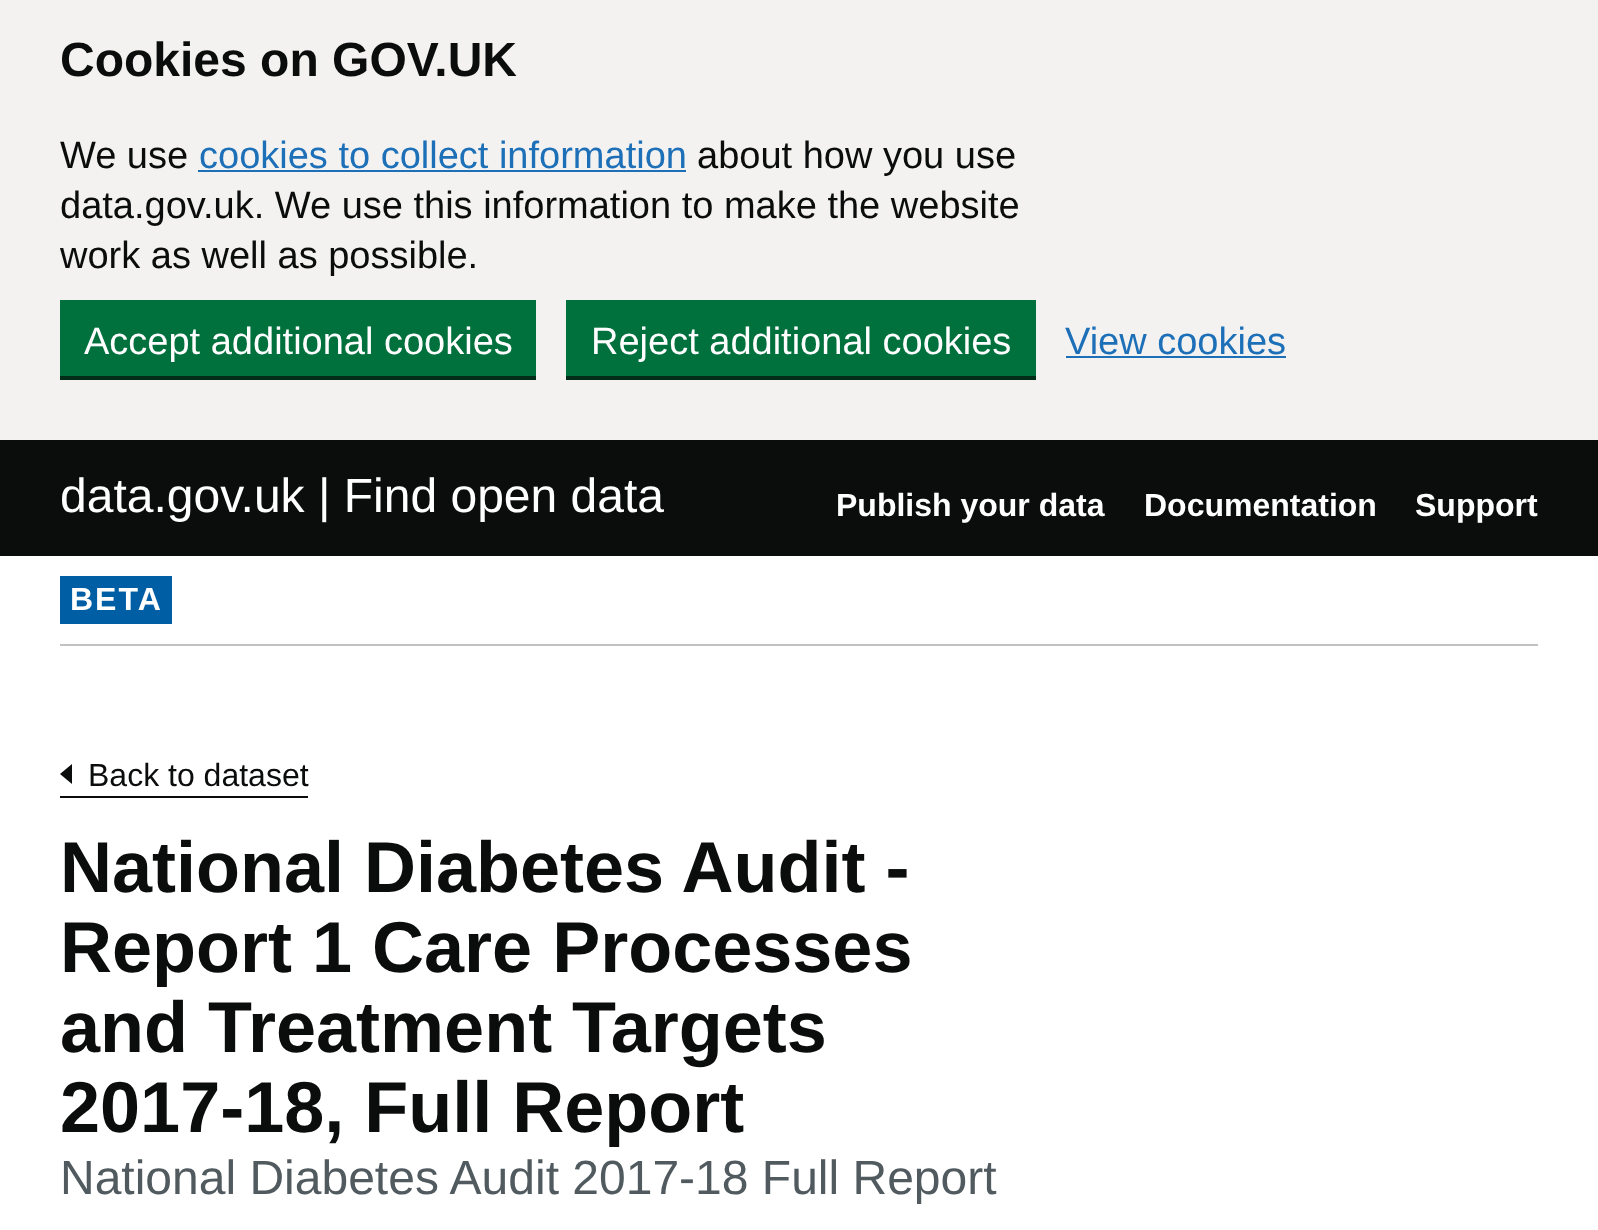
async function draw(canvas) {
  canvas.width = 1598
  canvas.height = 1230
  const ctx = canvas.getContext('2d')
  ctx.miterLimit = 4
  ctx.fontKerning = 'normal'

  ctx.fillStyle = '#fff'
  ctx.fillRect(0, 0, 1598, 1230)
  ctx.fillStyle = '#f3f2f1'
  ctx.fillRect(0, 0, 1598, 440)
  ctx.font = 'bold 48px Liberation Sans'
  ctx.fillStyle = '#0b0c0c'
  ctx.fillText('Cookies on GOV.UK', 60, 76)
  ctx.font = '38px Liberation Sans'
  ctx.fillText('We use', 60, 168)
  ctx.fillStyle = '#1d70b8'
  ctx.fillText('cookies to collect information', 199, 168)
  ctx.fillRect(198, 170, 488, 2)
  ctx.fillStyle = '#0b0c0c'
  ctx.fillText('about how you use', 697, 168)
  ctx.fillText('data.gov.uk. We use this information to make the website', 60, 218)
  ctx.fillText('work as well as possible.', 60, 268)
  ctx.fillStyle = '#002d18'
  ctx.fillRect(60, 376, 476, 4)
  ctx.fillStyle = '#00703c'
  ctx.fillRect(60, 300, 476, 76)
  ctx.fillStyle = '#fff'
  ctx.fillText('Accept additional cookies', 84, 354)
  ctx.fillStyle = '#002d18'
  ctx.fillRect(566, 376, 470, 4)
  ctx.fillStyle = '#00703c'
  ctx.fillRect(566, 300, 470, 76)
  ctx.fillStyle = '#fff'
  ctx.fillText('Reject additional cookies', 591, 354)
  ctx.fillStyle = '#1d70b8'
  ctx.fillText('View cookies', 1065, 354)
  ctx.fillRect(1066, 356, 220, 2)
  ctx.fillStyle = '#0b0c0c'
  ctx.fillRect(0, 440, 1598, 116)
  ctx.font = '48px Liberation Sans'
  ctx.fillStyle = '#fff'
  ctx.fillText('data.gov.uk | Find open data', 60, 512)
  ctx.font = 'bold 32px Liberation Sans'
  ctx.fillText('Publish your data', 836, 516)
  ctx.fillText('Documentation', 1144, 516)
  ctx.fillText('Support', 1415, 516)
  ctx.fillStyle = '#bfc1c3'
  ctx.fillRect(60, 644, 1478, 2)
  ctx.fillStyle = '#005ea5'
  ctx.fillRect(60, 576, 112, 48)
  ctx.letterSpacing = '2px'
  ctx.fillStyle = '#fff'
  ctx.fillText('BETA', 70, 610)
  ctx.fillStyle = '#0b0c0c'
  ctx.fillRect(60, 796, 248, 2)
  ctx.beginPath()
  ctx.moveTo(72, 764)
  ctx.lineTo(72, 784)
  ctx.lineTo(60, 774)
  ctx.closePath()
  ctx.fill()
  ctx.letterSpacing = '0px'
  ctx.font = '32px Liberation Sans'
  ctx.fillText('Back to dataset', 88, 786)
  ctx.font = 'bold 72px Liberation Sans'
  ctx.fillText('National Diabetes Audit -', 60, 892)
  ctx.fillText('Report 1 Care Processes', 60, 972)
  ctx.fillText('and Treatment Targets', 60, 1052)
  ctx.fillText('2017-18, Full Report', 60, 1132)
  ctx.font = '48px Liberation Sans'
  ctx.fillStyle = '#505a5f'
  ctx.fillText('National Diabetes Audit 2017-18 Full Report', 60, 1194)
}

draw(document.querySelector('canvas'))
